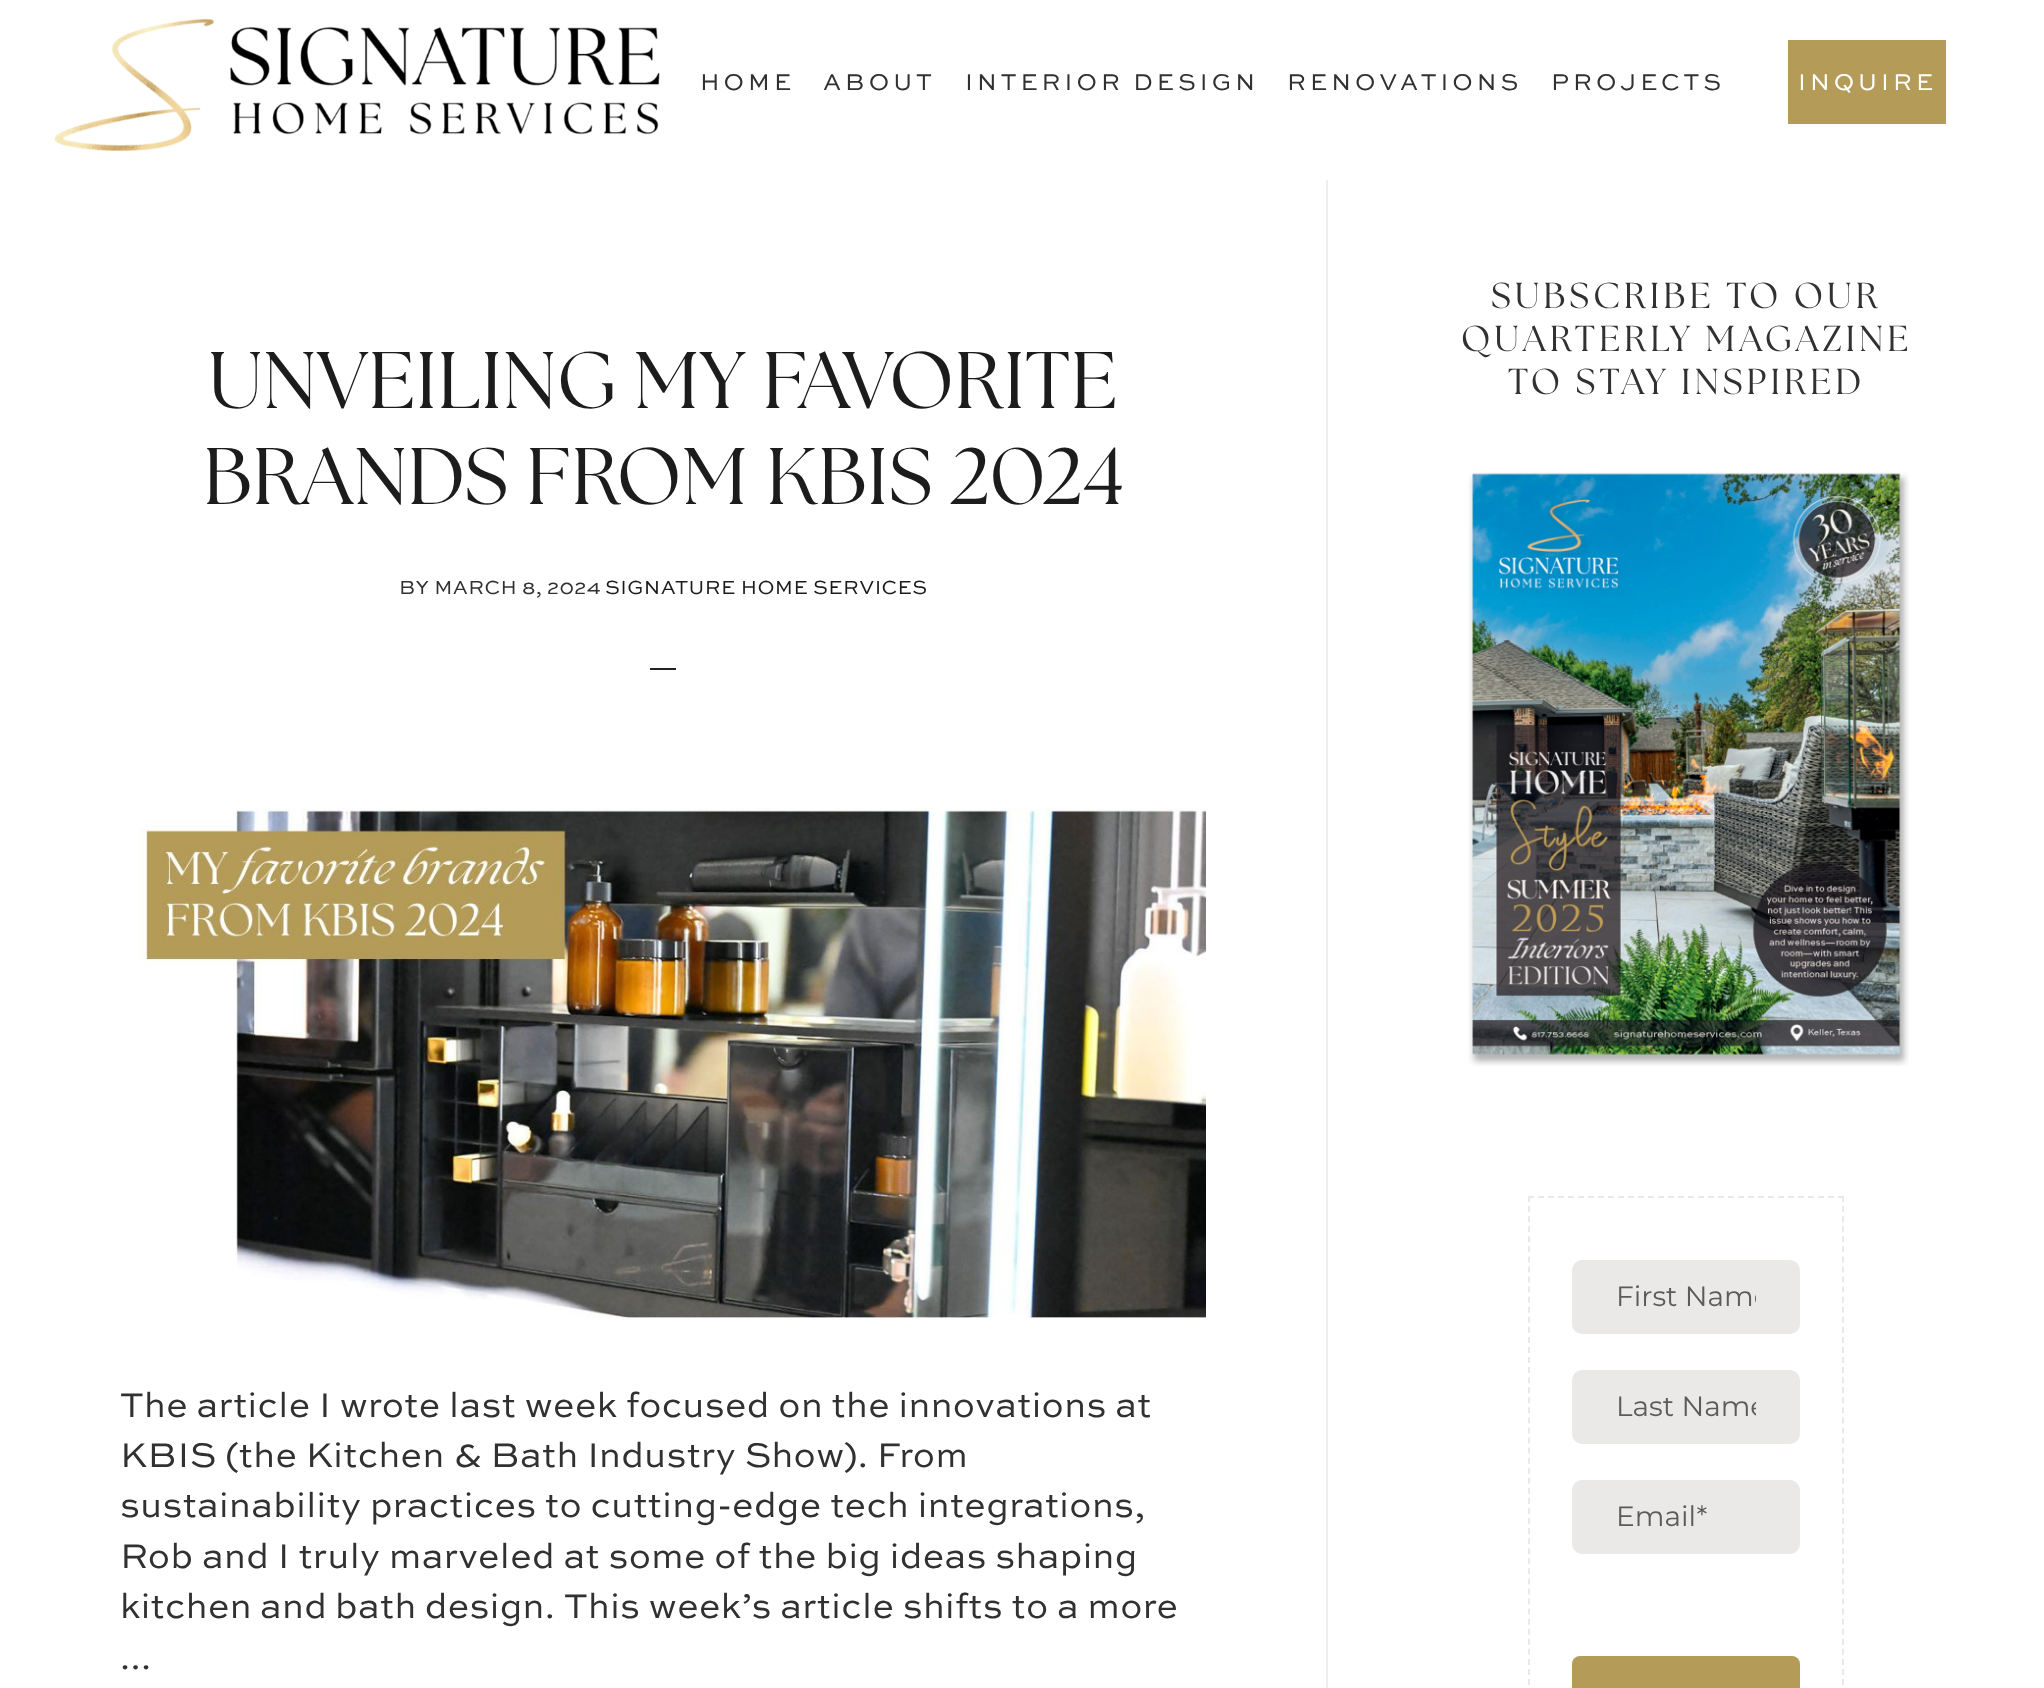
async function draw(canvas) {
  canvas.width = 2044
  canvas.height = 1688
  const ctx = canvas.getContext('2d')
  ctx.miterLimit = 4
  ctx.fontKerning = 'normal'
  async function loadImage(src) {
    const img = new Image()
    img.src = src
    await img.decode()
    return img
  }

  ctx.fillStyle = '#fff'
  ctx.fillRect(0, 0, 2044, 1688)
  ctx.drawImage(await loadImage('image0.png'), 54, 18, 606, 134)
  ctx.letterSpacing = '4px'
  ctx.font = '24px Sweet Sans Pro'
  ctx.fillStyle = '#313131'
  ctx.fillText('HOME', 700, 90)
  ctx.fillText('ABOUT', 823, 90)
  ctx.fillText('INTERIOR DESIGN', 965, 90)
  ctx.fillText('RENOVATIONS', 1287, 90)
  ctx.fillText('PROJECTS', 1551, 90)
  ctx.fillStyle = '#b49b58'
  ctx.fillRect(1788, 40, 158, 84)
  ctx.fillStyle = '#fff'
  ctx.fillText('INQUIRE', 1798, 90)
  ctx.font = '36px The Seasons'
  ctx.fillStyle = '#313131'
  ctx.fillText('SUBSCRIBE TO OUR', 1491, 308)
  ctx.fillText('QUARTERLY MAGAZINE', 1461, 351)
  ctx.fillText('TO STAY INSPIRED', 1508, 394)
  ctx.drawImage(await loadImage('image1.png'), 1468, 472, 441, 594)
  ctx.drawImage(await loadImage('image2.png'), 1528, 1196, 316, 492)
  ctx.fillStyle = '#eee'
  ctx.fillRect(1326, 180, 2, 1508)
  ctx.letterSpacing = '0.4px'
  ctx.font = '80px The Seasons'
  ctx.fillStyle = '#1c1c1c'
  ctx.fillText('UNVEILING MY FAVORITE', 208, 408)
  ctx.fillText('BRANDS FROM KBIS 2024', 203, 504)
  ctx.font = '20px Sweet Sans Pro'
  ctx.fillStyle = '#313131'
  ctx.fillText('BY MARCH 8, 2024', 399, 594)
  ctx.fillStyle = '#1c1c1c'
  ctx.fillText('SIGNATURE HOME SERVICES', 605, 594)
  ctx.fillStyle = '#222'
  ctx.fillRect(650, 668, 26, 2)
  ctx.drawImage(await loadImage('image3.png'), 137, 807, 1069, 511)
  ctx.font = '36px Sweet Sans Pro'
  ctx.fillStyle = '#313131'
  ctx.fillText('The article I wrote last week focused on the innovations at', 120, 1417)
  ctx.fillText('KBIS (the Kitchen & Bath Industry Show). From', 120, 1467)
  ctx.fillText('sustainability practices to cutting-edge tech integrations,', 120, 1517)
  ctx.fillText('Rob and I truly marveled at some of the big ideas shaping', 120, 1568)
  ctx.wordSpacing = '-0.5px'
  ctx.fillText('kitchen and bath design.', 120, 1618)
  ctx.wordSpacing = '0px'
  ctx.fillText('This week’s article shifts to a more', 564, 1618)
  ctx.fillText('...', 120, 1669)
}

draw(document.querySelector('canvas'))
